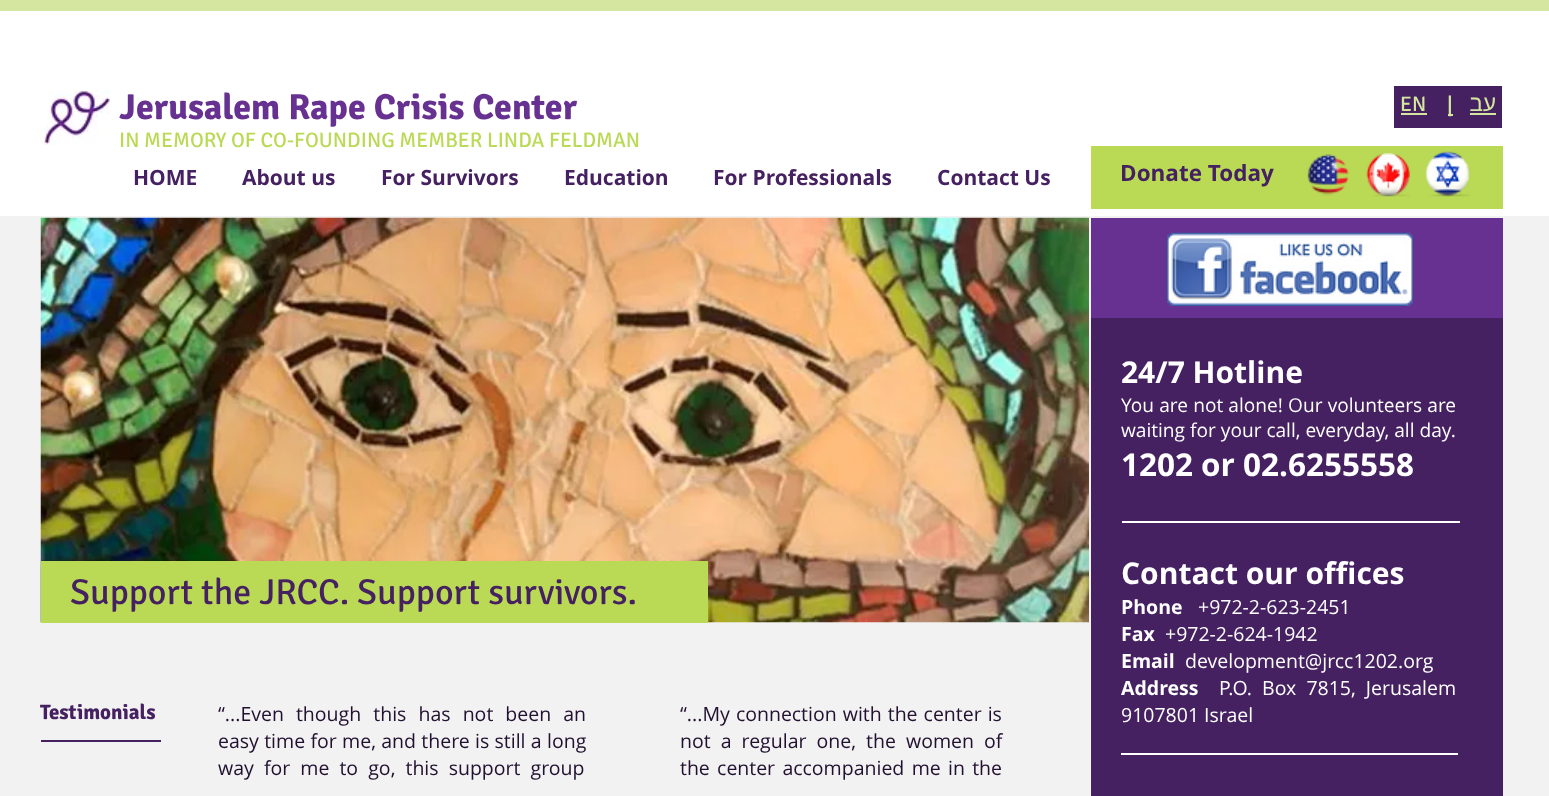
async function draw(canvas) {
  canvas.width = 1549
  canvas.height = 796
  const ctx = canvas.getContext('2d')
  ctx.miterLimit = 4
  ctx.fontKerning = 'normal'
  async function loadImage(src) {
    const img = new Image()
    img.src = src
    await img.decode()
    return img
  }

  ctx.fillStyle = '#f2f2f2'
  ctx.fillRect(0, 0, 1549, 796)
  ctx.fillStyle = '#fff'
  ctx.fillRect(0, 11, 1549, 205)
  ctx.fillStyle = '#d5e6a0'
  ctx.fillRect(0, 0, 1549, 11)
  ctx.drawImage(await loadImage('image0.png'), 38, 89, 72, 56)
  ctx.font = 'bold 36px Signika'
  ctx.fillStyle = '#673191'
  ctx.fillText('Jerusalem Rape Crisis Center', 119, 119)
  ctx.font = '21px Signika'
  ctx.fillStyle = '#bada55'
  ctx.fillText('IN MEMORY OF CO-FOUNDING MEMBER LINDA FELDMAN', 119, 147)
  ctx.fillStyle = '#452161'
  ctx.fillRect(1394, 86, 108, 42)
  ctx.fillStyle = '#d5e6a0'
  ctx.fillText('EN', 1400, 111)
  ctx.fillRect(1401, 113, 26, 2)
  ctx.fillRect(1448, 114, 5, 2)
  ctx.font = '22.5px Signika'
  ctx.fillText('|', 1447, 113)
  ctx.direction = 'rtl'
  ctx.font = '22.5px Liberation Sans'
  ctx.fillText('עב', 1496, 111)
  ctx.fillRect(1470, 113, 26, 2)
  ctx.direction = 'ltr'
  ctx.font = 'bold 21px Open Sans'
  ctx.fillStyle = '#452161'
  ctx.fillText('HOME', 133, 185)
  ctx.fillText('About us', 242, 185)
  ctx.fillText('For Survivors', 381, 185)
  ctx.fillText('Education', 564, 185)
  ctx.fillText('For Professionals', 713, 185)
  ctx.fillText('Contact Us', 937, 185)
  ctx.fillStyle = '#bada55'
  ctx.fillRect(1091, 146, 412, 63)
  ctx.font = 'bold 22.5px Open Sans'
  ctx.fillStyle = '#452161'
  ctx.fillText('Donate Today', 1120, 181)
  ctx.drawImage(await loadImage('image1.png'), 1307, 154, 42, 42)
  ctx.drawImage(await loadImage('image2.png'), 1366, 153, 44, 44)
  ctx.drawImage(await loadImage('image3.png'), 1425, 151, 45, 46)
  ctx.fillStyle = '#673191'
  ctx.fillRect(1091, 218, 412, 100)
  ctx.drawImage(await loadImage('image4.png'), 1167, 232, 246, 74)
  ctx.drawImage(await loadImage('image5.png'), 40, 217, 1049, 406)
  ctx.fillStyle = '#452161'
  ctx.fillRect(1091, 318, 412, 478)
  ctx.font = 'bold 30px Open Sans'
  ctx.fillStyle = '#fff'
  ctx.fillText('24/7 Hotline', 1121, 383)
  ctx.wordSpacing = '0.25px'
  ctx.font = '19.1px Open Sans'
  ctx.fillText('You are not alone! Our volunteers are', 1121, 412)
  ctx.wordSpacing = '0px'
  ctx.fillText('waiting for your call, everyday, all day.', 1121, 437)
  ctx.font = 'bold 31.5px Open Sans'
  ctx.fillText('1202 or 02.6255558', 1121, 476)
  ctx.font = 'bold 30px Open Sans'
  ctx.fillText('Contact our offices', 1121, 584)
  ctx.font = 'bold 19.5px Open Sans'
  ctx.fillText('Phone', 1121, 614)
  ctx.font = '19.5px Open Sans'
  ctx.fillText('+972-2-623-2451', 1198, 614)
  ctx.font = 'bold 19.5px Open Sans'
  ctx.fillText('Fax', 1121, 641)
  ctx.font = '19.5px Open Sans'
  ctx.fillText('+972-2-624-1942', 1165, 641)
  ctx.font = 'bold 19.5px Open Sans'
  ctx.fillText('Email', 1121, 668)
  ctx.font = '19.5px Open Sans'
  ctx.fillText('development@jrcc1202.org', 1185, 668)
  ctx.font = 'bold 19.5px Open Sans'
  ctx.fillText('Address', 1121, 695)
  ctx.wordSpacing = '5px'
  ctx.font = '19.5px Open Sans'
  ctx.fillText('P.O. Box 7815, Jerusalem', 1219, 695)
  ctx.wordSpacing = '0px'
  ctx.fillText('9107801 Israel', 1121, 722)
  ctx.fillRect(1122, 521, 338, 2)
  ctx.fillStyle = '#bada55'
  ctx.fillRect(41, 561, 667, 62)
  ctx.font = '36px Signika'
  ctx.fillStyle = '#452161'
  ctx.fillText('Support the JRCC. Support survivors.', 70, 604)
  ctx.font = 'bold 21px Signika'
  ctx.fillText('Testimonials', 40, 719)
  ctx.wordSpacing = '7px'
  ctx.font = '19.5px Open Sans'
  ctx.fillStyle = '#221030'
  ctx.fillText('“...Even though this has not been an', 218, 721)
  ctx.wordSpacing = '0.25px'
  ctx.fillText('easy time for me, and there is still a long', 218, 748)
  ctx.wordSpacing = '5px'
  ctx.fillText('way for me to go, this support group', 218, 775)
  ctx.wordSpacing = '1px'
  ctx.fillText('“...My connection with the center is', 680, 721)
  ctx.wordSpacing = '5px'
  ctx.fillText('not a regular one, the women of', 680, 748)
  ctx.wordSpacing = '2.25px'
  ctx.fillText('the center accompanied me in the', 680, 775)
  ctx.fillStyle = '#452161'
  ctx.fillRect(41, 740, 120, 2)
  ctx.fillStyle = '#fff'
  ctx.fillRect(1121, 753, 337, 2)
}

draw(document.querySelector('canvas'))
